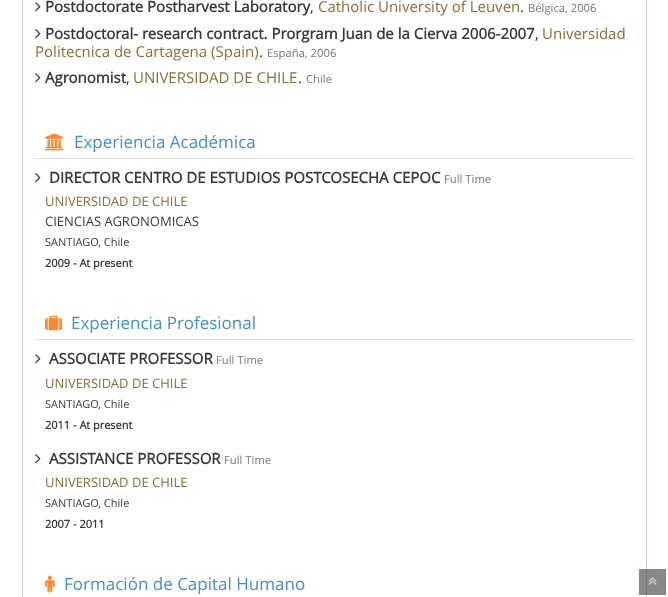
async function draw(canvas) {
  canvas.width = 668
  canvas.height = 597
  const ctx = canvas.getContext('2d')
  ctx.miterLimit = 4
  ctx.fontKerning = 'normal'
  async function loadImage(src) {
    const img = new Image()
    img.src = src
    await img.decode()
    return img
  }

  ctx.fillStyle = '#fff'
  ctx.fillRect(0, 0, 668, 597)
  ctx.strokeStyle = '#c5d0dc'
  ctx.strokeRect(22.5, -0.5, 624, 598)
  ctx.drawImage(await loadImage('image0.png'), 35, 2, 6, 10)
  ctx.font = 'bold 15px Open Sans'
  ctx.fillStyle = '#393939'
  ctx.fillText('Postdoctorate Postharvest Laboratory', 45, 12)
  ctx.font = '15px Open Sans'
  ctx.fillText(',', 310, 12)
  ctx.fillStyle = '#8a6d3b'
  ctx.fillText('Catholic University of Leuven', 318, 12)
  ctx.fillStyle = '#393939'
  ctx.fillText('.', 520, 12)
  ctx.font = '11.25px Open Sans'
  ctx.fillStyle = '#777'
  ctx.fillText('Bélgica, 2006', 528, 12)
  ctx.drawImage(await loadImage('image0.png'), 35, 29, 6, 10)
  ctx.font = 'bold 15px Open Sans'
  ctx.fillStyle = '#393939'
  ctx.fillText('Postdoctoral- research contract. Prorgram Juan de la Cierva 2006-2007', 45, 39)
  ctx.font = '15px Open Sans'
  ctx.fillText(',', 535, 39)
  ctx.fillStyle = '#8a6d3b'
  ctx.fillText('Universidad', 542, 39)
  ctx.fillText('Politecnica de Cartagena (Spain)', 35, 57)
  ctx.fillStyle = '#393939'
  ctx.fillText('.', 259, 57)
  ctx.font = '11.25px Open Sans'
  ctx.fillStyle = '#777'
  ctx.fillText('España, 2006', 267, 57)
  ctx.drawImage(await loadImage('image0.png'), 35, 73, 6, 10)
  ctx.font = 'bold 15px Open Sans'
  ctx.fillStyle = '#393939'
  ctx.fillText('Agronomist', 45, 83)
  ctx.font = '15px Open Sans'
  ctx.fillText(',', 126, 83)
  ctx.fillStyle = '#8a6d3b'
  ctx.fillText('UNIVERSIDAD DE CHILE', 133, 83)
  ctx.fillStyle = '#393939'
  ctx.fillText('.', 298, 83)
  ctx.font = '11.25px Open Sans'
  ctx.fillStyle = '#777'
  ctx.fillText('Chile', 306, 83)
  ctx.fillStyle = '#ddd'
  ctx.fillRect(35, 158, 599, 1)
  ctx.drawImage(await loadImage('image1.png'), 45, 133, 19, 18)
  ctx.font = '17px Open Sans'
  ctx.fillStyle = '#478fca'
  ctx.fillText('Experiencia Académica', 74, 148)
  ctx.drawImage(await loadImage('image0.png'), 35, 173, 6, 10)
  ctx.font = 'bold 15px Open Sans'
  ctx.fillStyle = '#393939'
  ctx.fillText('DIRECTOR CENTRO DE ESTUDIOS POSTCOSECHA CEPOC', 49, 183)
  ctx.font = '11.25px Open Sans'
  ctx.fillStyle = '#777'
  ctx.fillText('Full Time', 444, 183)
  ctx.font = '13px Open Sans'
  ctx.fillStyle = '#8a6d3b'
  ctx.fillText('UNIVERSIDAD DE CHILE', 45, 206)
  ctx.fillStyle = '#393939'
  ctx.fillText('CIENCIAS AGRONOMICAS', 45, 226)
  ctx.font = '11px Open Sans'
  ctx.fillText('SANTIAGO, Chile', 45, 246)
  ctx.font = 'bold 11px Open Sans'
  ctx.fillText('2009 - At present', 45, 267)
  ctx.fillStyle = '#ddd'
  ctx.fillRect(35, 339, 599, 1)
  ctx.drawImage(await loadImage('image2.png'), 45, 315, 17, 16)
  ctx.font = '17px Open Sans'
  ctx.fillStyle = '#478fca'
  ctx.fillText('Experiencia Profesional', 71, 329)
  ctx.drawImage(await loadImage('image0.png'), 35, 354, 6, 10)
  ctx.font = 'bold 15px Open Sans'
  ctx.fillStyle = '#393939'
  ctx.fillText('ASSOCIATE PROFESSOR', 49, 364)
  ctx.font = '11.25px Open Sans'
  ctx.fillStyle = '#777'
  ctx.fillText('Full Time', 216, 364)
  ctx.font = '13px Open Sans'
  ctx.fillStyle = '#8a6d3b'
  ctx.fillText('UNIVERSIDAD DE CHILE', 45, 388)
  ctx.font = '11px Open Sans'
  ctx.fillStyle = '#393939'
  ctx.fillText('SANTIAGO, Chile', 45, 408)
  ctx.font = 'bold 11px Open Sans'
  ctx.fillText('2011 - At present', 45, 429)
  ctx.drawImage(await loadImage('image0.png'), 35, 454, 6, 10)
  ctx.font = 'bold 15px Open Sans'
  ctx.fillText('ASSISTANCE PROFESSOR', 49, 464)
  ctx.font = '11.25px Open Sans'
  ctx.fillStyle = '#777'
  ctx.fillText('Full Time', 224, 464)
  ctx.font = '13px Open Sans'
  ctx.fillStyle = '#8a6d3b'
  ctx.fillText('UNIVERSIDAD DE CHILE', 45, 487)
  ctx.font = '11px Open Sans'
  ctx.fillStyle = '#393939'
  ctx.fillText('SANTIAGO, Chile', 45, 507)
  ctx.font = 'bold 11px Open Sans'
  ctx.fillText('2007 - 2011', 45, 528)
  ctx.drawImage(await loadImage('image3.png'), 45, 575, 10, 18)
  ctx.font = '17px Open Sans'
  ctx.fillStyle = '#478fca'
  ctx.fillText('Formación de Capital Humano', 64, 590)
  ctx.fillStyle = '#555555b3'
  ctx.fillRect(639, 569, 27, 26)
  ctx.drawImage(await loadImage('image4.png'), 648, 577, 9, 8)
}

draw(document.querySelector('canvas'))
